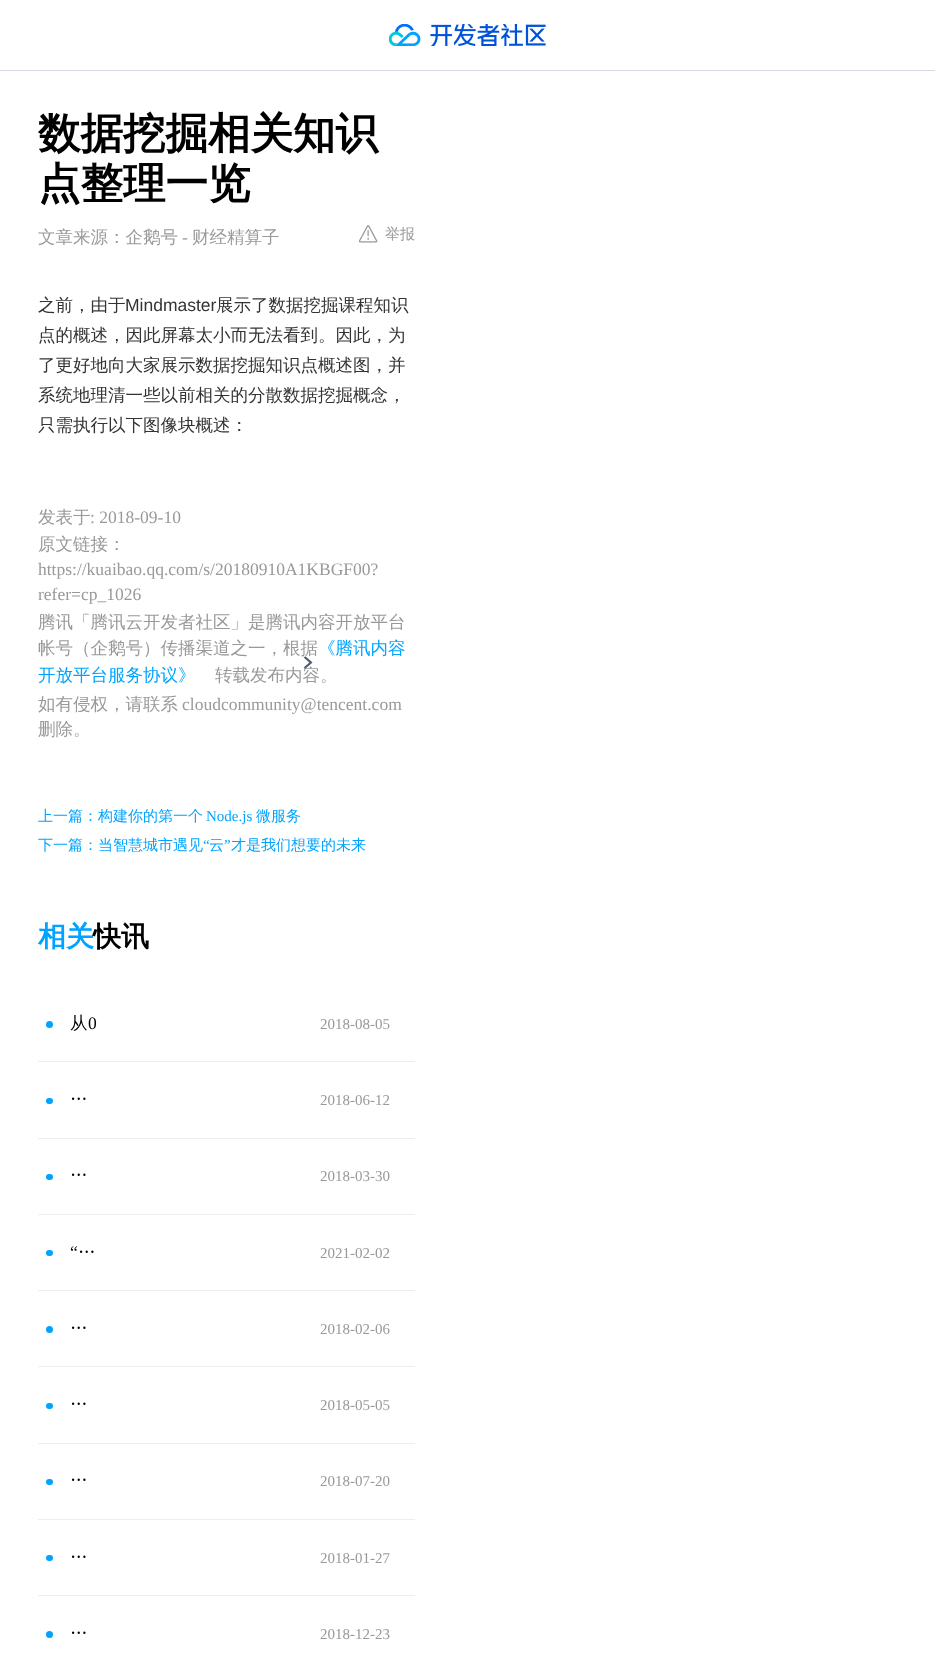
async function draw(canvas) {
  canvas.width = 935
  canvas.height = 1653
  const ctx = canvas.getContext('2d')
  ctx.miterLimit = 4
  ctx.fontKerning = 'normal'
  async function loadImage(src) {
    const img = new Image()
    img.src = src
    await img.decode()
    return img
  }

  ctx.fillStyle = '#fff'
  ctx.fillRect(0, 0, 935, 1653)
  ctx.fillStyle = '#d6dbe3'
  ctx.fillRect(0, 70, 935, 1)
  ctx.drawImage(await loadImage('image0.png'), 389, 24, 157, 22)
  ctx.font = 'bold 42.5px WenQuanYi Zen Hei'
  ctx.fillStyle = '#000'
  ctx.fillText('数据挖掘相关知识', 38, 148)
  ctx.fillText('点整理一览', 38, 198)
  ctx.font = '500 17.5px WenQuanYi Zen Hei'
  ctx.fillStyle = '#999'
  ctx.fillText('文章来源：企鹅号', 38, 243)
  ctx.font = '17.5px Liberation Serif'
  ctx.fillText('-', 182, 243)
  ctx.font = '500 17.5px WenQuanYi Zen Hei'
  ctx.fillText('财经精算子', 192, 243)
  ctx.drawImage(await loadImage('image1.png'), 359, 225, 19, 18)
  ctx.font = '500 15px WenQuanYi Zen Hei'
  ctx.fillText('举报', 385, 239)
  ctx.font = '500 17.5px WenQuanYi Zen Hei'
  ctx.fillStyle = '#333'
  ctx.fillText('之前，由于', 38, 311)
  ctx.font = '17.5px Liberation Sans'
  ctx.fillText('Mindmaster', 125, 311)
  ctx.font = '500 17.5px WenQuanYi Zen Hei'
  ctx.fillText('展示了数据挖掘课程知识', 216, 311)
  ctx.fillText('点的概述，因此屏幕太小而无法看到。因此，为', 38, 341)
  ctx.fillText('了更好地向大家展示数据挖掘知识点概述图，并', 38, 371)
  ctx.fillText('系统地理清一些以前相关的分散数据挖掘概念，', 38, 401)
  ctx.fillText('只需执行以下图像块概述：', 38, 431)
  ctx.fillStyle = '#999'
  ctx.fillText('发表于', 38, 523)
  ctx.font = '17.5px Liberation Serif'
  ctx.fillText(': 2018-09-10', 90, 523)
  ctx.font = '500 17.5px WenQuanYi Zen Hei'
  ctx.fillText('原文链接：', 38, 550)
  ctx.font = '17.5px Liberation Serif'
  ctx.fillText('https://kuaibao.qq.com/s/20180910A1KBGF00?', 38, 575)
  ctx.fillText('refer=cp_1026', 38, 600)
  ctx.font = '500 17.5px WenQuanYi Zen Hei'
  ctx.fillText('腾讯「腾讯云开发者社区」是腾讯内容开放平台', 38, 628)
  ctx.fillText('帐号（企鹅号）传播渠道之一，根据', 38, 654)
  ctx.fillStyle = '#00a4ff'
  ctx.fillText('《腾讯内容', 318, 654)
  ctx.fillStyle = '#999'
  ctx.fillText('转载发布内容。', 215, 681)
  ctx.drawImage(await loadImage('image2.png'), 303, 656, 10, 13)
  ctx.fillStyle = '#00a4ff'
  ctx.fillText('开放平台服务协议》', 38, 681)
  ctx.fillStyle = '#999'
  ctx.fillText('如有侵权，请联系', 38, 710)
  ctx.font = '17.5px Liberation Serif'
  ctx.fillText('cloudcommunity@tencent.com', 182, 710)
  ctx.font = '500 17.5px WenQuanYi Zen Hei'
  ctx.fillText('删除。', 38, 735)
  ctx.font = '500 15px WenQuanYi Zen Hei'
  ctx.fillStyle = '#00a4ff'
  ctx.fillText('上一篇：构建你的第一个', 38, 821)
  ctx.font = '15px Liberation Serif'
  ctx.fillText('Node.js', 206, 821)
  ctx.font = '500 15px WenQuanYi Zen Hei'
  ctx.fillText('微服务', 256, 821)
  ctx.fillText('下一篇：当智慧城市遇见', 38, 850)
  ctx.font = '15px Liberation Serif'
  ctx.fillText('“', 203, 850)
  ctx.font = '500 15px WenQuanYi Zen Hei'
  ctx.fillText('云', 209, 850)
  ctx.font = '15px Liberation Serif'
  ctx.fillText('”', 224, 850)
  ctx.font = '500 15px WenQuanYi Zen Hei'
  ctx.fillText('才是我们想要的未来', 231, 850)
  ctx.font = 'bold 28px WenQuanYi Zen Hei'
  ctx.fillText('相关', 38, 946)
  ctx.fillStyle = '#000'
  ctx.fillText('快讯', 93, 946)
  ctx.fillStyle = '#eee'
  ctx.fillRect(38, 1061, 377, 1)
  ctx.fillStyle = '#00a4ff'
  ctx.beginPath()
  ctx.arc(49.5, 1024.5, 3.5, 0, 2 * Math.PI)
  ctx.fill()
  ctx.font = '500 17.5px WenQuanYi Zen Hei'
  ctx.fillStyle = '#000'
  ctx.fillText('从', 70, 1029)
  ctx.font = '17.5px Liberation Serif'
  ctx.fillText('0', 88, 1029)
  ctx.font = '15px Liberation Serif'
  ctx.fillStyle = '#999'
  ctx.fillText('2018-08-05', 320, 1029)
  ctx.fillStyle = '#eee'
  ctx.fillRect(38, 1138, 377, 1)
  ctx.fillStyle = '#00a4ff'
  ctx.beginPath()
  ctx.roundRect(46, 1098, 7, 6, 3)
  ctx.fill()
  ctx.font = '500 17.5px WenQuanYi Zen Hei'
  ctx.fillStyle = '#000'
  ctx.fillText('…', 70, 1105)
  ctx.font = '15px Liberation Serif'
  ctx.fillStyle = '#999'
  ctx.fillText('2018-06-12', 320, 1105)
  ctx.fillStyle = '#eee'
  ctx.fillRect(38, 1214, 377, 1)
  ctx.fillStyle = '#00a4ff'
  ctx.beginPath()
  ctx.roundRect(46, 1174, 7, 6, 3)
  ctx.fill()
  ctx.font = '500 17.5px WenQuanYi Zen Hei'
  ctx.fillStyle = '#000'
  ctx.fillText('…', 70, 1181)
  ctx.font = '15px Liberation Serif'
  ctx.fillStyle = '#999'
  ctx.fillText('2018-03-30', 320, 1181)
  ctx.fillStyle = '#eee'
  ctx.fillRect(38, 1290, 377, 1)
  ctx.fillStyle = '#00a4ff'
  ctx.beginPath()
  ctx.roundRect(46, 1250, 7, 6, 3)
  ctx.fill()
  ctx.font = '17.5px Liberation Serif'
  ctx.fillStyle = '#000'
  ctx.fillText('“', 70, 1258)
  ctx.font = '500 17.5px WenQuanYi Zen Hei'
  ctx.fillText('…', 78, 1258)
  ctx.font = '15px Liberation Serif'
  ctx.fillStyle = '#999'
  ctx.fillText('2021-02-02', 320, 1258)
  ctx.fillStyle = '#eee'
  ctx.fillRect(38, 1366, 377, 1)
  ctx.fillStyle = '#00a4ff'
  ctx.beginPath()
  ctx.arc(49.5, 1329.5, 3.5, 0, 2 * Math.PI)
  ctx.fill()
  ctx.font = '500 17.5px WenQuanYi Zen Hei'
  ctx.fillStyle = '#000'
  ctx.fillText('…', 70, 1334)
  ctx.font = '15px Liberation Serif'
  ctx.fillStyle = '#999'
  ctx.fillText('2018-02-06', 320, 1334)
  ctx.fillStyle = '#eee'
  ctx.fillRect(38, 1443, 377, 1)
  ctx.fillStyle = '#00a4ff'
  ctx.beginPath()
  ctx.roundRect(46, 1403, 7, 6, 3)
  ctx.fill()
  ctx.font = '500 17.5px WenQuanYi Zen Hei'
  ctx.fillStyle = '#000'
  ctx.fillText('…', 70, 1410)
  ctx.font = '15px Liberation Serif'
  ctx.fillStyle = '#999'
  ctx.fillText('2018-05-05', 320, 1410)
  ctx.fillStyle = '#eee'
  ctx.fillRect(38, 1519, 377, 1)
  ctx.fillStyle = '#00a4ff'
  ctx.beginPath()
  ctx.roundRect(46, 1479, 7, 6, 3)
  ctx.fill()
  ctx.font = '500 17.5px WenQuanYi Zen Hei'
  ctx.fillStyle = '#000'
  ctx.fillText('…', 70, 1486)
  ctx.font = '15px Liberation Serif'
  ctx.fillStyle = '#999'
  ctx.fillText('2018-07-20', 320, 1486)
  ctx.fillStyle = '#eee'
  ctx.fillRect(38, 1595, 377, 1)
  ctx.fillStyle = '#00a4ff'
  ctx.beginPath()
  ctx.roundRect(46, 1555, 7, 6, 3)
  ctx.fill()
  ctx.font = '500 17.5px WenQuanYi Zen Hei'
  ctx.fillStyle = '#000'
  ctx.fillText('…', 70, 1563)
  ctx.font = '15px Liberation Serif'
  ctx.fillStyle = '#999'
  ctx.fillText('2018-01-27', 320, 1563)
  ctx.fillStyle = '#00a4ff'
  ctx.beginPath()
  ctx.arc(49.5, 1634.5, 3.5, 0, 2 * Math.PI)
  ctx.fill()
  ctx.font = '500 17.5px WenQuanYi Zen Hei'
  ctx.fillStyle = '#000'
  ctx.fillText('…', 70, 1639)
  ctx.font = '15px Liberation Serif'
  ctx.fillStyle = '#999'
  ctx.fillText('2018-12-23', 320, 1639)
}

draw(document.querySelector('canvas'))
